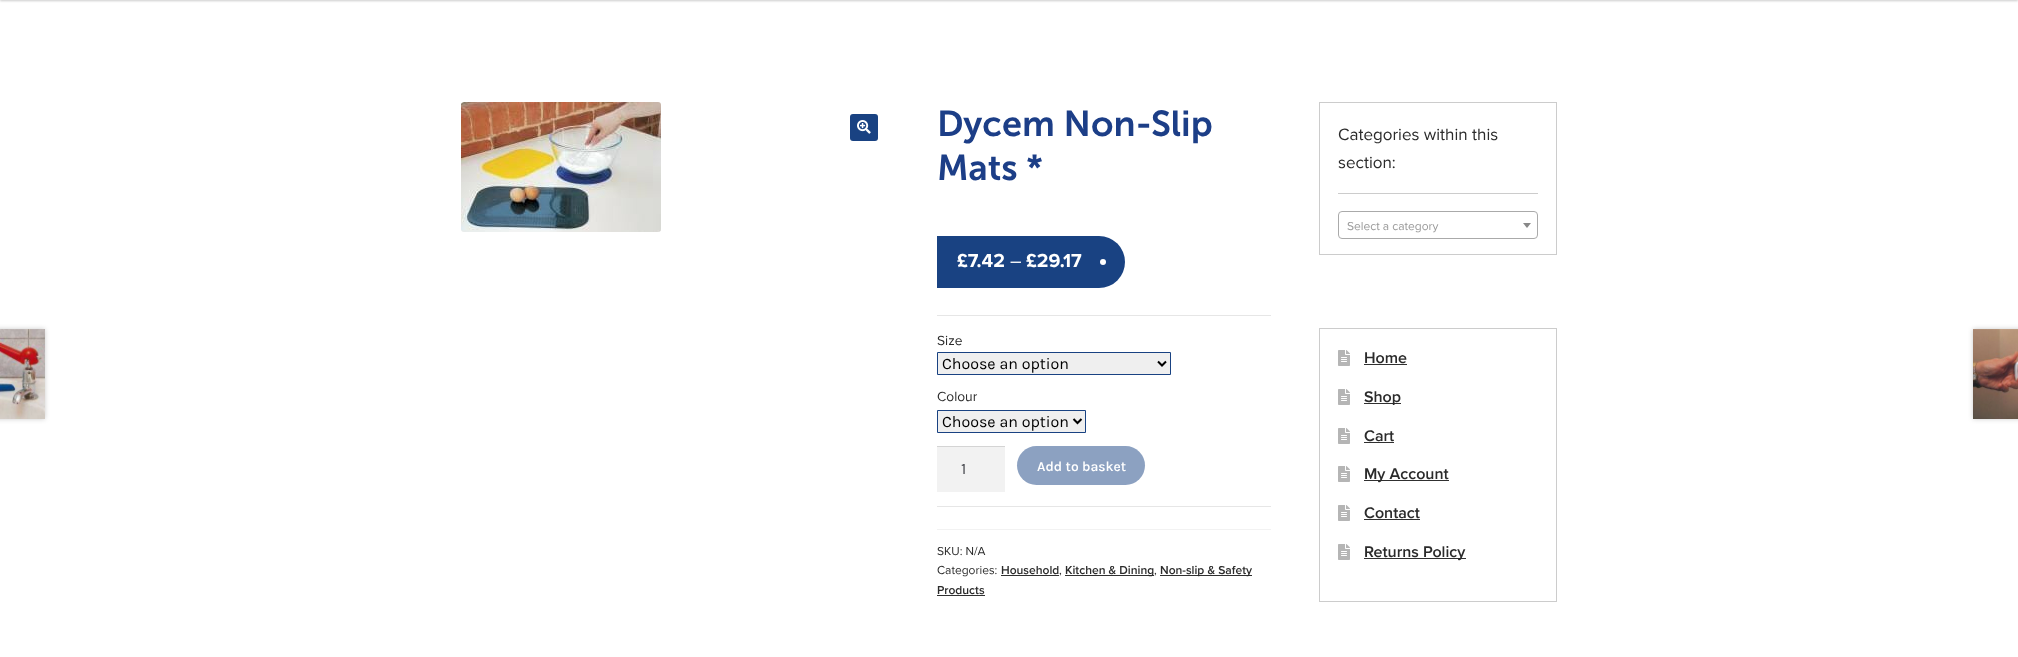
async function draw(canvas) {
  canvas.width = 2018
  canvas.height = 657
  const ctx = canvas.getContext('2d')
  ctx.miterLimit = 4
  ctx.fontKerning = 'normal'
  async function loadImage(src) {
    const img = new Image()
    img.src = src
    await img.decode()
    return img
  }

  ctx.fillStyle = '#fff'
  ctx.fillRect(0, 0, 2018, 657)
  ctx.fillStyle = '#00000033'
  ctx.filter = 'blur(1px)'
  ctx.beginPath()
  ctx.rect(0, -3, 2018, 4)
  ctx.fill()
  ctx.filter = 'none'
  ctx.drawImage(await loadImage('image0.png'), 461, 102, 200, 130)
  ctx.fillStyle = '#194282'
  ctx.beginPath()
  ctx.roundRect(850, 114, 28, 27, 3)
  ctx.fill()
  ctx.drawImage(await loadImage('image1.png'), 857, 120, 14, 14)
  ctx.font = '600 36px "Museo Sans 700"'
  ctx.fillStyle = '#1c3e87'
  ctx.fillText('Dycem Non-Slip', 937, 136)
  ctx.fillText('Mats *', 937, 180)
  ctx.fillStyle = '#194282'
  ctx.beginPath()
  ctx.roundRect(937, 236, 188, 52, [0, 26, 26, 0])
  ctx.fill()
  ctx.font = 'bold 19.5px Proxima Nova'
  ctx.fillStyle = '#fff'
  ctx.fillText('£7.42', 957, 267)
  ctx.font = '19.5px Proxima Nova'
  ctx.fillText('–', 1010, 267)
  ctx.font = 'bold 19.5px Proxima Nova'
  ctx.fillText('£29.17', 1026, 267)
  ctx.beginPath()
  ctx.arc(1103, 262, 3, 0, 2 * Math.PI)
  ctx.fill()
  ctx.fillStyle = '#e6e6e6'
  ctx.fillRect(937, 315, 334, 1)
  ctx.fillRect(937, 506, 334, 1)
  ctx.font = '13.75px Proxima Nova'
  ctx.fillStyle = '#2b2b2b'
  ctx.fillText('Size', 937, 345)
  ctx.fillStyle = '#efefef'
  ctx.beginPath()
  ctx.rect(937.5, 352.5, 233, 22)
  ctx.fill()
  ctx.strokeStyle = '#194282'
  ctx.stroke()
  ctx.beginPath()
  ctx.moveTo(1158, 361.5)
  ctx.lineTo(1162, 365.5)
  ctx.lineTo(1166, 361.5)
  ctx.strokeStyle = '#000'
  ctx.lineWidth = 2
  ctx.stroke()
  ctx.font = '16px Karla'
  ctx.fillStyle = '#000'
  ctx.fillText('Choose an option', 942, 369)
  ctx.font = '13.75px Proxima Nova'
  ctx.fillStyle = '#2b2b2b'
  ctx.fillText('Colour', 937, 401)
  ctx.fillStyle = '#efefef'
  ctx.beginPath()
  ctx.rect(937.5, 410.5, 148, 22)
  ctx.fill()
  ctx.strokeStyle = '#194282'
  ctx.lineWidth = 1
  ctx.stroke()
  ctx.beginPath()
  ctx.moveTo(1073.5, 419)
  ctx.lineTo(1077.5, 423)
  ctx.lineTo(1081.5, 419)
  ctx.strokeStyle = '#000'
  ctx.lineWidth = 2
  ctx.stroke()
  ctx.font = '16px Karla'
  ctx.fillStyle = '#000'
  ctx.fillText('Choose an option', 942, 427)
  ctx.fillStyle = '#f2f2f2'
  ctx.fillRect(937, 447, 68, 45)
  ctx.fillStyle = '#d4d4d4'
  ctx.fillRect(937, 446, 68, 1)
  ctx.fillStyle = '#43454b'
  ctx.fillText('1', 961, 474)
  ctx.fillStyle = '#8ca1c1'
  ctx.beginPath()
  ctx.roundRect(1017, 446, 128, 39, 19.5)
  ctx.fill()
  ctx.font = '600 13.75px Karla'
  ctx.fillStyle = '#fff'
  ctx.fillText('Add to basket', 1037, 471)
  ctx.fillStyle = '#f2f2f2'
  ctx.fillRect(937, 529, 334, 1)
  ctx.font = '12px Proxima Nova'
  ctx.fillStyle = '#2b2b2b'
  ctx.fillText('SKU: N/A', 937, 555)
  ctx.fillText('Categories:', 937, 574)
  ctx.font = '600 12px Proxima Nova'
  ctx.fillText('Household', 1001, 574)
  ctx.fillStyle = '#303030'
  ctx.fillRect(1001, 575, 58, 1)
  ctx.font = '12px Proxima Nova'
  ctx.fillStyle = '#2b2b2b'
  ctx.fillText(',', 1059, 574)
  ctx.fillStyle = '#303030'
  ctx.fillRect(1065, 575, 89, 1)
  ctx.font = '600 12px Proxima Nova'
  ctx.fillStyle = '#2b2b2b'
  ctx.fillText('Kitchen & Dining', 1065, 574)
  ctx.font = '12px Proxima Nova'
  ctx.fillText(',', 1154, 574)
  ctx.fillStyle = '#303030'
  ctx.fillRect(1160, 575, 92, 1)
  ctx.font = '600 12px Proxima Nova'
  ctx.fillStyle = '#2b2b2b'
  ctx.fillText('Non-slip & Safety', 1160, 574)
  ctx.fillText('Products', 937, 594)
  ctx.fillStyle = '#303030'
  ctx.fillRect(937, 595, 48, 1)
  ctx.fillStyle = '#00000033'
  ctx.filter = 'blur(2.5px)'
  ctx.beginPath()
  ctx.rect(-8, 329, 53, 90)
  ctx.fill()
  ctx.filter = 'none'
  ctx.drawImage(await loadImage('image2.png'), 0, 329, 45, 90)
  ctx.filter = 'blur(2.5px)'
  ctx.beginPath()
  ctx.rect(1973, 329, 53, 90)
  ctx.fill()
  ctx.filter = 'none'
  ctx.drawImage(await loadImage('image3.png'), 1973, 329, 45, 90)
  ctx.strokeStyle = '#ccc'
  ctx.lineWidth = 1
  ctx.strokeRect(1319.5, 102.5, 237, 152)
  ctx.fillStyle = '#ccc'
  ctx.fillRect(1338, 193, 200, 1)
  ctx.font = '17px Proxima Nova'
  ctx.fillStyle = '#2b2b2b'
  ctx.fillText('Categories within this', 1338, 140)
  ctx.fillText('section:', 1338, 168)
  ctx.beginPath()
  ctx.roundRect(1338.5, 211.5, 199, 27, 3.5)
  ctx.strokeStyle = '#aaa'
  ctx.stroke()
  ctx.font = '12px Proxima Nova'
  ctx.fillStyle = '#999'
  ctx.fillText('Select a category', 1347, 230)
  ctx.fillStyle = '#888'
  ctx.beginPath()
  ctx.moveTo(1523, 223)
  ctx.lineTo(1531, 223)
  ctx.lineTo(1527, 228)
  ctx.closePath()
  ctx.fill()
  ctx.strokeStyle = '#ccc'
  ctx.strokeRect(1319.5, 328.5, 237, 273)
  ctx.drawImage(await loadImage('image4.png'), 1338, 350, 12, 16)
  ctx.font = '600 16px Proxima Nova'
  ctx.fillStyle = '#2b2b2b'
  ctx.fillText('Home', 1364, 363)
  ctx.fillStyle = '#303030'
  ctx.fillRect(1364, 364, 43, 1)
  ctx.drawImage(await loadImage('image4.png'), 1338, 389, 12, 16)
  ctx.fillRect(1364, 403, 37, 1)
  ctx.fillStyle = '#2b2b2b'
  ctx.fillText('Shop', 1364, 402)
  ctx.drawImage(await loadImage('image4.png'), 1338, 428, 12, 16)
  ctx.fillText('Cart', 1364, 441)
  ctx.fillStyle = '#303030'
  ctx.fillRect(1364, 442, 30, 1)
  ctx.drawImage(await loadImage('image4.png'), 1338, 466, 12, 16)
  ctx.fillRect(1364, 480, 85, 1)
  ctx.fillStyle = '#2b2b2b'
  ctx.fillText('My Account', 1364, 479)
  ctx.drawImage(await loadImage('image4.png'), 1338, 505, 12, 16)
  ctx.fillText('Contact', 1364, 518)
  ctx.fillStyle = '#303030'
  ctx.fillRect(1364, 519, 56, 1)
  ctx.drawImage(await loadImage('image4.png'), 1338, 544, 12, 16)
  ctx.fillRect(1364, 558, 102, 1)
  ctx.fillStyle = '#2b2b2b'
  ctx.fillText('Returns Policy', 1364, 557)
}

draw(document.querySelector('canvas'))
